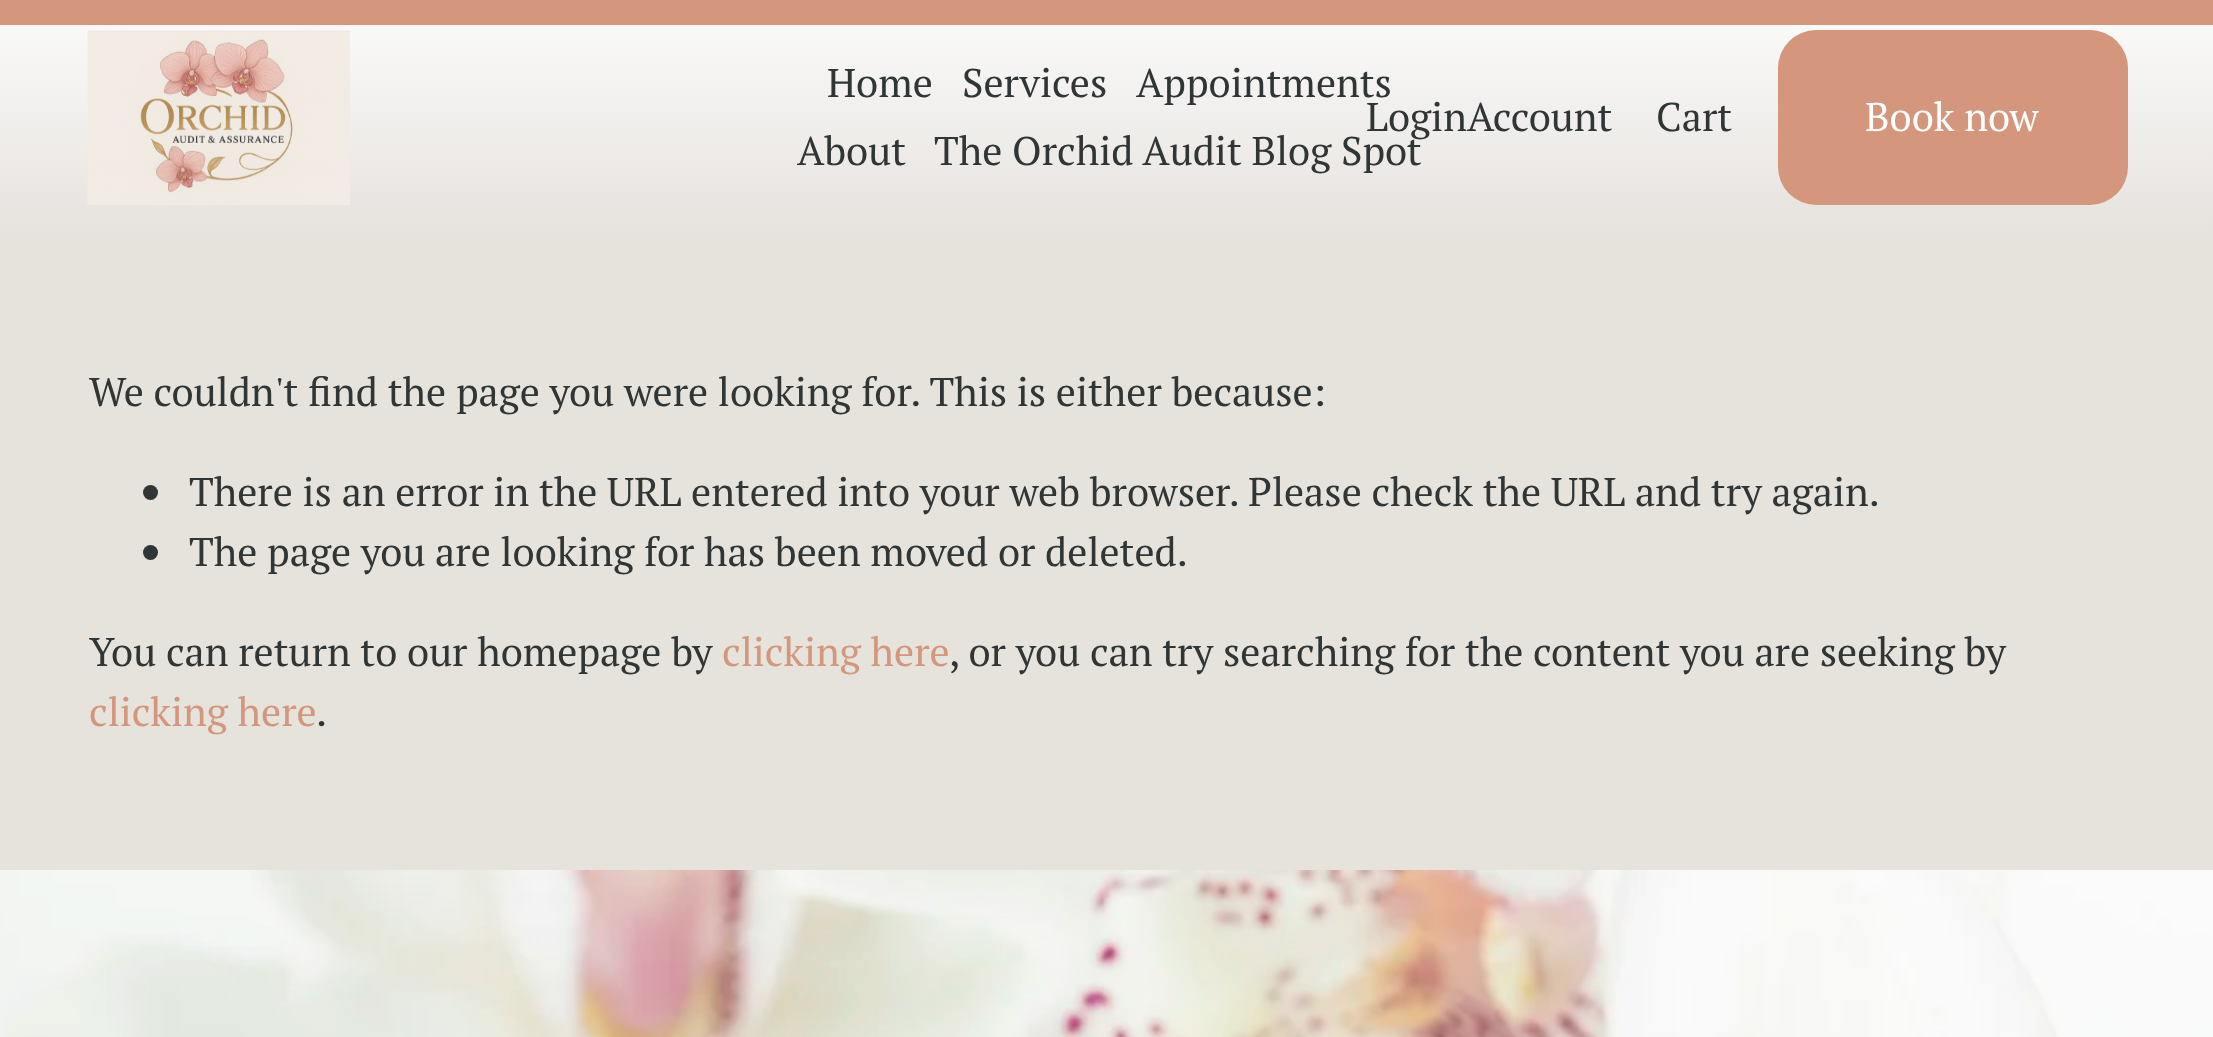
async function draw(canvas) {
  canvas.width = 2213
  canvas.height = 1037
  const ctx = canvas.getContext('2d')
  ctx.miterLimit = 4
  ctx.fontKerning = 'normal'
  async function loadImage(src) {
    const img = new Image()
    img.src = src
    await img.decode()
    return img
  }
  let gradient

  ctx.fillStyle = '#e5e3dc'
  ctx.fillRect(0, 0, 2213, 1037)
  ctx.fillStyle = '#d4967d'
  ctx.fillRect(0, 0, 2213, 25)
  gradient = ctx.createLinearGradient(1108, 0, 1108, 233)
  gradient.addColorStop(0, '#fcfcfc')
  gradient.addColorStop(1, '#e6e2de')
  ctx.fillStyle = gradient
  ctx.fillRect(0, 25, 2213, 204)
  ctx.drawImage(await loadImage('image0.png'), 87, 30, 263, 175)
  ctx.font = '40px PT Serif'
  ctx.fillStyle = '#303636'
  ctx.fillText('Home', 827, 97)
  ctx.fillText('Services', 962, 97)
  ctx.fillText('Appointments', 1136, 97)
  ctx.fillText('About', 797, 165)
  ctx.fillText('The Orchid Audit Blog Spot', 934, 165)
  ctx.fillText('LoginAccount', 1366, 131)
  ctx.fillText('Cart', 1656, 131)
  ctx.fillStyle = '#d4967d'
  ctx.beginPath()
  ctx.roundRect(1778, 30, 350, 175, 38)
  ctx.fill()
  ctx.fillStyle = '#fff'
  ctx.fillText('Book now', 1865, 131)
  ctx.fillStyle = '#303636'
  ctx.fillText('We couldn\'t find the page you were looking for. This is either because:', 89, 406)
  ctx.beginPath()
  ctx.arc(150.5, 492.5, 7.5, 0, 2 * Math.PI)
  ctx.fill()
  ctx.fillText('There is an error in the URL entered into your web browser. Please check the URL and try again.', 189, 506)
  ctx.beginPath()
  ctx.arc(150.5, 552.5, 7.5, 0, 2 * Math.PI)
  ctx.fill()
  ctx.fillText('The page you are looking for has been moved or deleted.', 189, 566)
  ctx.fillText('You can return to our homepage by', 89, 666)
  ctx.fillStyle = '#d4967d'
  ctx.fillText('clicking here', 722, 666)
  ctx.fillStyle = '#303636'
  ctx.fillText(', or you can try searching for the content you are seeking by', 949, 666)
  ctx.fillStyle = '#d4967d'
  ctx.fillText('clicking here', 89, 726)
  ctx.fillStyle = '#303636'
  ctx.fillText('.', 316, 726)
  ctx.drawImage(await loadImage('image1.png'), 0, 870, 2213, 167)
}

draw(document.querySelector('canvas'))
